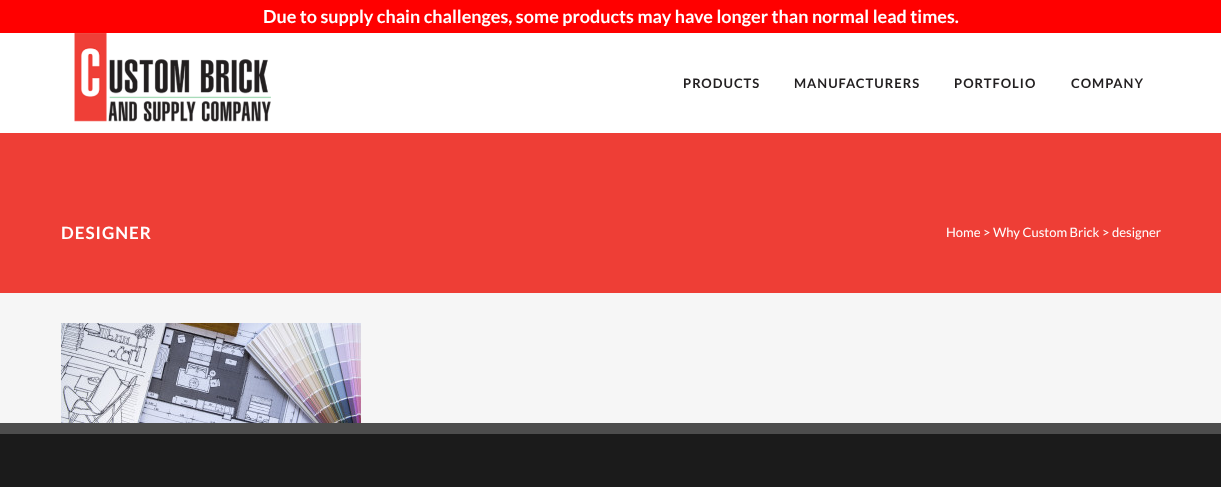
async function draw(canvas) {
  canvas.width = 1221
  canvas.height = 487
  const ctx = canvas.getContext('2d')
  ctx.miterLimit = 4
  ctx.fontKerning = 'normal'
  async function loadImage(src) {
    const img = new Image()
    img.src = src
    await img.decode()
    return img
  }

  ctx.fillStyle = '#1b1b1b'
  ctx.fillRect(0, 0, 1221, 487)
  ctx.fillStyle = '#f00'
  ctx.fillRect(0, 0, 1221, 33)
  ctx.font = 'bold 18px Lato'
  ctx.fillStyle = '#fff'
  ctx.fillText('Due to supply chain challenges, some products may have longer than normal lead times.', 263, 23)
  ctx.fillRect(0, 33, 1221, 100)
  ctx.drawImage(await loadImage('image0.png'), 74, 33, 197, 89)
  ctx.letterSpacing = '1px'
  ctx.font = 'bold 13px Lato'
  ctx.fillStyle = '#221f20'
  ctx.fillText('PRODUCTS', 683, 88)
  ctx.fillText('MANUFACTURERS', 794, 88)
  ctx.fillText('PORTFOLIO', 954, 88)
  ctx.fillText('COMPANY', 1071, 88)
  ctx.fillStyle = '#f6f6f6'
  ctx.fillRect(0, 293, 1221, 130)
  ctx.fillStyle = '#ee3e36'
  ctx.fillRect(0, 133, 1221, 160)
  ctx.font = 'bold 17px Lato'
  ctx.fillStyle = '#fff'
  ctx.fillText('DESIGNER', 61, 239)
  ctx.letterSpacing = '0px'
  ctx.font = '13px Lato'
  ctx.fillText('Home > Why Custom Brick > designer', 946, 237)
  ctx.drawImage(await loadImage('image1.png'), 61, 323, 300, 100)
  ctx.fillStyle = '#4d4d4d'
  ctx.fillRect(0, 423, 1221, 11)
}

draw(document.querySelector('canvas'))
